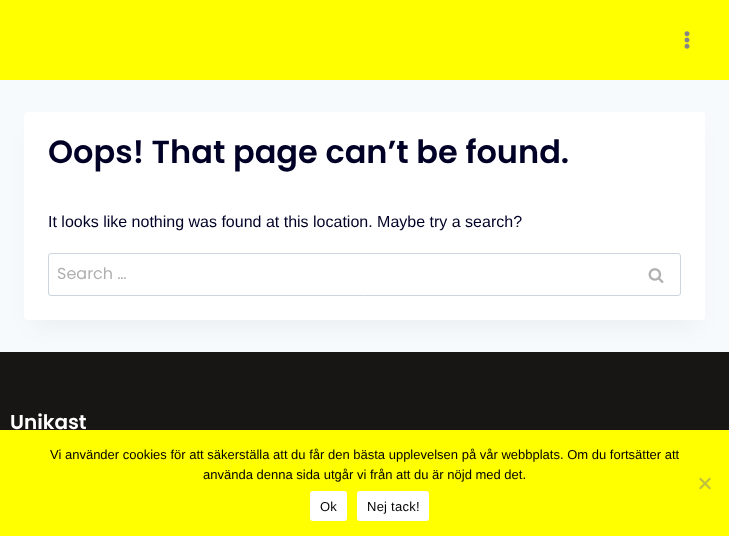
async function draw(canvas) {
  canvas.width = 729
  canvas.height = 536
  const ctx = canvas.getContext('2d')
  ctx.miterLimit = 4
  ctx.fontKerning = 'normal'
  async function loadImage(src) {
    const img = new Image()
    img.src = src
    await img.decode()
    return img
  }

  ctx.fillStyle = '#f7fafc'
  ctx.fillRect(0, 0, 729, 536)
  ctx.fillStyle = '#ff0'
  ctx.fillRect(0, 0, 729, 80)
  ctx.drawImage(await loadImage('image0.png'), 684, 31, 6, 18)
  ctx.fillStyle = '#0000000d'
  ctx.filter = 'blur(12.5px)'
  ctx.beginPath()
  ctx.rect(34, 137, 661, 188)
  ctx.fill()
  ctx.filter = 'none'
  ctx.fillStyle = '#fff'
  ctx.beginPath()
  ctx.roundRect(24, 112, 681, 208, 4)
  ctx.fill()
  ctx.font = '600 32px Poppins'
  ctx.fillStyle = '#000027'
  ctx.fillText('Oops! That page can’t be found.', 48, 163)
  ctx.font = '16px Liberation Sans'
  ctx.fillText('It looks like nothing was found at this location. Maybe try a search?', 48, 227)
  ctx.beginPath()
  ctx.roundRect(48.5, 253.5, 632, 42, 2.5)
  ctx.strokeStyle = '#cbd5e0'
  ctx.stroke()
  ctx.font = '16px Poppins'
  ctx.fillStyle = '#b0b0b0'
  ctx.fillText('Search …', 57, 279)
  ctx.drawImage(await loadImage('image1.png'), 648, 268, 16, 15)
  ctx.fillStyle = '#181515'
  ctx.fillRect(0, 352, 729, 78)
  ctx.font = '600 20px Poppins'
  ctx.fillStyle = '#fff'
  ctx.fillText('Unikast', 10, 429)
  ctx.fillStyle = '#ff0'
  ctx.fillRect(0, 430, 729, 106)
  ctx.font = '13px Liberation Sans'
  ctx.fillStyle = '#000'
  ctx.fillText('Vi använder cookies för att säkerställa att du får den bästa upplevelsen på vår webbplats. Om du fortsätter att', 50, 459)
  ctx.fillText('använda denna sida utgår vi från att du är nöjd med det.', 203, 479)
  ctx.fillStyle = '#c0c040'
  ctx.beginPath()
  ctx.moveTo(709.5, 477.5)
  ctx.lineTo(711, 479)
  ctx.lineTo(700.5, 489.5)
  ctx.lineTo(699, 488)
  ctx.closePath()
  ctx.fill()
  ctx.beginPath()
  ctx.moveTo(699, 479)
  ctx.lineTo(700.5, 477.5)
  ctx.lineTo(711, 488)
  ctx.lineTo(709.5, 489.5)
  ctx.closePath()
  ctx.fill()
  ctx.fillStyle = '#fff'
  ctx.beginPath()
  ctx.roundRect(310, 491, 37, 30, 3)
  ctx.fill()
  ctx.letterSpacing = '0.25px'
  ctx.fillStyle = '#000'
  ctx.fillText('Ok', 320, 511)
  ctx.fillStyle = '#fff'
  ctx.beginPath()
  ctx.roundRect(357, 491, 72, 30, 3)
  ctx.fill()
  ctx.fillStyle = '#000'
  ctx.fillText('Nej tack!', 367, 511)
}

draw(document.querySelector('canvas'))
